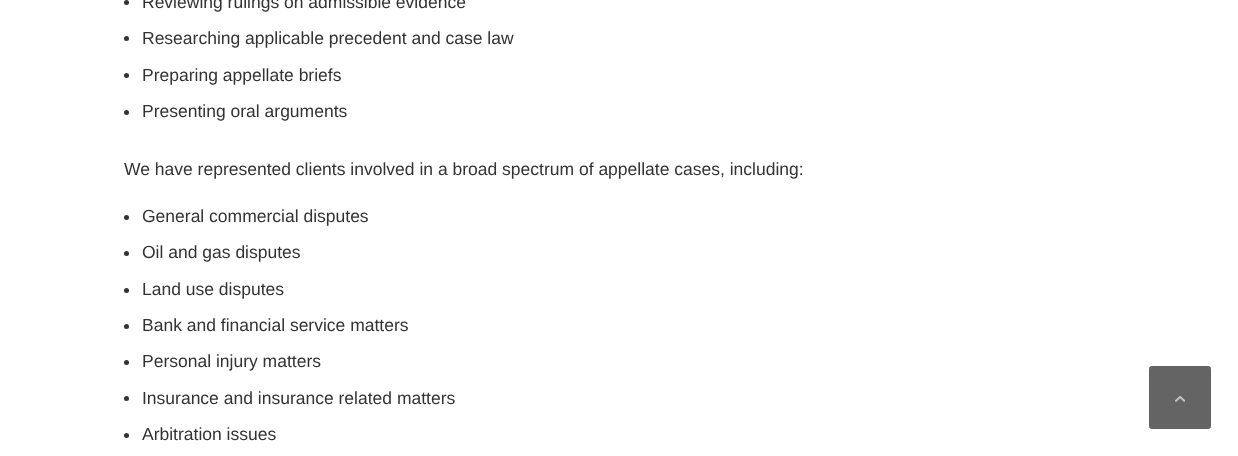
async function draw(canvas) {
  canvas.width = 1238
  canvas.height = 456
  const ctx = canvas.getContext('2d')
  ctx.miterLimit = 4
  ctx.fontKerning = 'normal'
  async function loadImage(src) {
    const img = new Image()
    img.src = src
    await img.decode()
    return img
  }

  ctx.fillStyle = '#fff'
  ctx.fillRect(0, 0, 1238, 456)
  ctx.fillStyle = '#333'
  ctx.beginPath()
  ctx.arc(126.5, 2.5, 2.5, 0, 2 * Math.PI)
  ctx.fill()
  ctx.font = '17.5px Liberation Sans'
  ctx.fillText('Reviewing rulings on admissible evidence', 142, 8)
  ctx.beginPath()
  ctx.arc(126.5, 38.5, 2.5, 0, 2 * Math.PI)
  ctx.fill()
  ctx.fillText('Researching applicable precedent and case law', 142, 44)
  ctx.beginPath()
  ctx.arc(126.5, 75.5, 2.5, 0, 2 * Math.PI)
  ctx.fill()
  ctx.fillText('Preparing appellate briefs', 142, 81)
  ctx.beginPath()
  ctx.arc(126.5, 112.5, 2.5, 0, 2 * Math.PI)
  ctx.fill()
  ctx.fillText('Presenting oral arguments', 142, 117)
  ctx.fillText('We have represented clients involved in a broad spectrum of appellate cases, including:', 124, 175)
  ctx.beginPath()
  ctx.arc(126.5, 217.5, 2.5, 0, 2 * Math.PI)
  ctx.fill()
  ctx.fillText('General commercial disputes', 142, 222)
  ctx.beginPath()
  ctx.arc(126.5, 253.5, 2.5, 0, 2 * Math.PI)
  ctx.fill()
  ctx.fillText('Oil and gas disputes', 142, 258)
  ctx.beginPath()
  ctx.arc(126.5, 290.5, 2.5, 0, 2 * Math.PI)
  ctx.fill()
  ctx.fillText('Land use disputes', 142, 295)
  ctx.beginPath()
  ctx.arc(126.5, 326.5, 2.5, 0, 2 * Math.PI)
  ctx.fill()
  ctx.fillText('Bank and financial service matters', 142, 331)
  ctx.beginPath()
  ctx.arc(126.5, 362.5, 2.5, 0, 2 * Math.PI)
  ctx.fill()
  ctx.fillText('Personal injury matters', 142, 367)
  ctx.beginPath()
  ctx.arc(126.5, 398.5, 2.5, 0, 2 * Math.PI)
  ctx.fill()
  ctx.fillText('Insurance and insurance related matters', 142, 404)
  ctx.beginPath()
  ctx.arc(126.5, 435.5, 2.5, 0, 2 * Math.PI)
  ctx.fill()
  ctx.fillText('Arbitration issues', 142, 440)
  ctx.fillStyle = '#646464'
  ctx.beginPath()
  ctx.roundRect(1149.5, 366.5, 61, 62, 2)
  ctx.fill()
  ctx.strokeStyle = '#646464'
  ctx.stroke()
  ctx.drawImage(await loadImage('image0.png'), 1175, 396, 11, 6)
}

draw(document.querySelector('canvas'))
